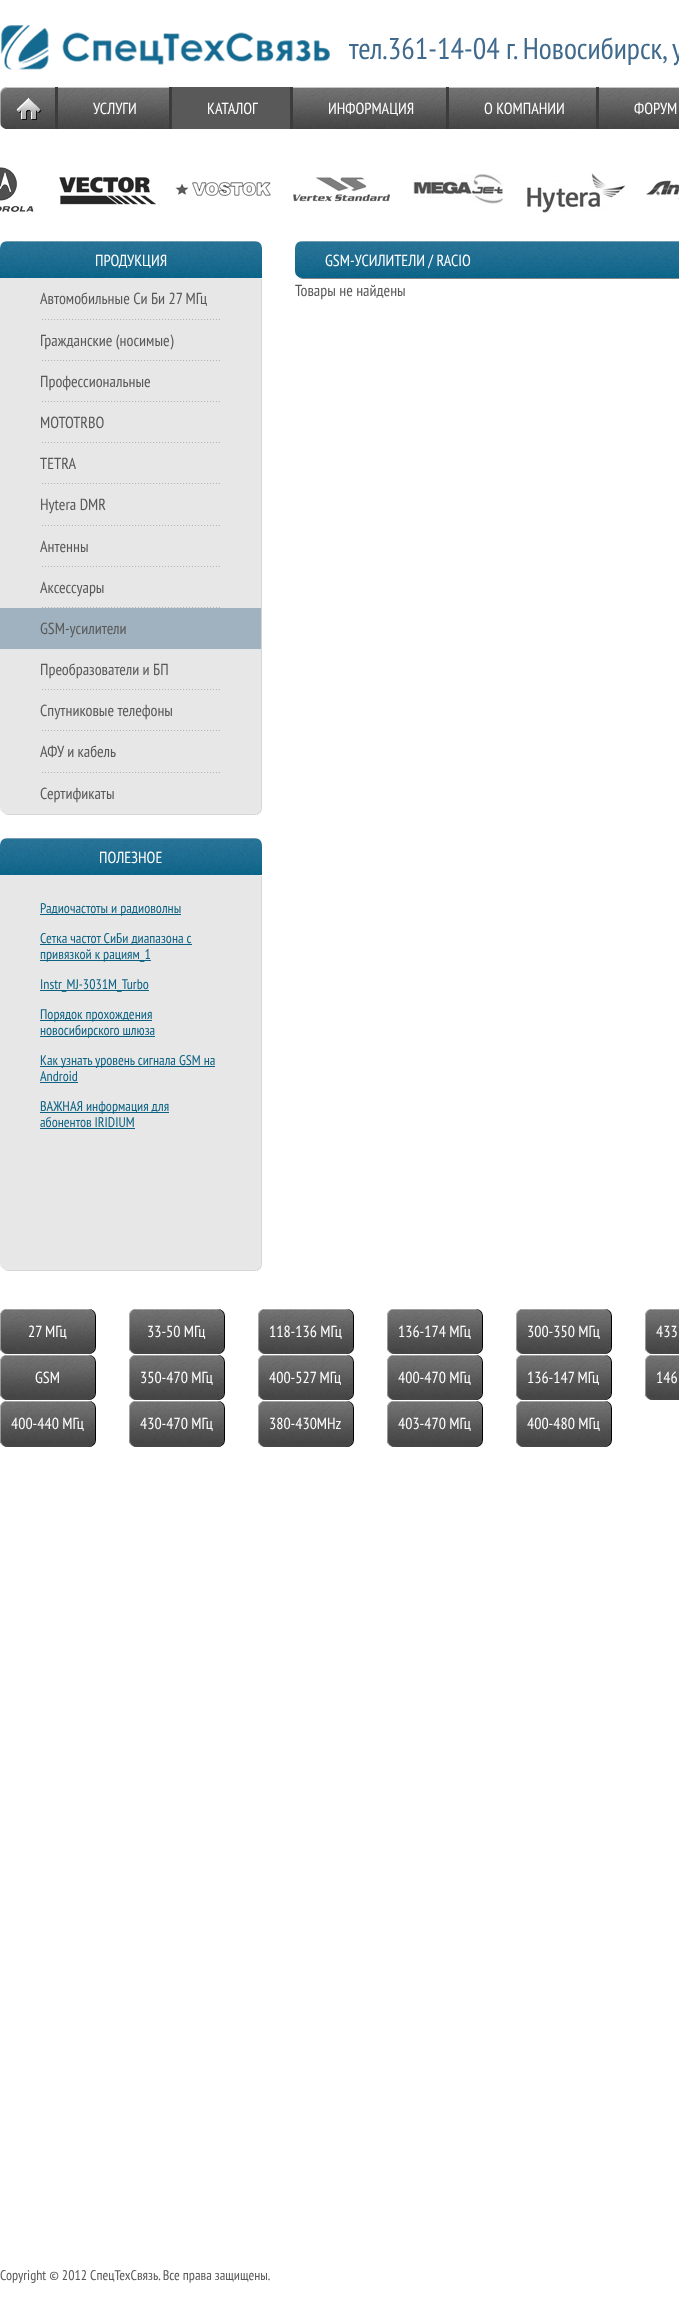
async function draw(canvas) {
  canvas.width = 679
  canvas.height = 2312
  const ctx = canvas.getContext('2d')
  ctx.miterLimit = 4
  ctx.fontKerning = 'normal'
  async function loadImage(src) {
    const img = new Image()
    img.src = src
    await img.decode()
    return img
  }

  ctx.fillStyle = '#fff'
  ctx.fillRect(0, 0, 679, 2312)
  ctx.drawImage(await loadImage('image0.png'), 0, 25, 330, 45)
  ctx.font = '30px PT Sans Narrow'
  ctx.fillStyle = '#3f6a8d'
  ctx.fillText('тел.361-14-04 г. Новосибирск, у', 349, 59)
  ctx.fillStyle = '#000'
  ctx.filter = 'blur(0.5px)'
  ctx.beginPath()
  ctx.roundRect(1, 87, 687, 42, 7)
  ctx.fill()
  ctx.filter = 'none'
  ctx.drawImage(await loadImage('image1.png'), 0, 87, 679, 42)
  ctx.fillStyle = '#ffffff66'
  ctx.beginPath()
  ctx.moveTo(8, 88)
  ctx.lineTo(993, 88)
  ctx.bezierCurveTo(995, 88, 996, 88, 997, 89)
  ctx.bezierCurveTo(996, 88, 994, 87, 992, 87)
  ctx.lineTo(7, 87)
  ctx.bezierCurveTo(3, 87, 0, 90, 0, 94)
  ctx.lineTo(0, 122)
  ctx.bezierCurveTo(0, 124, 1, 126, 2, 127)
  ctx.bezierCurveTo(1, 126, 1, 125, 1, 123)
  ctx.lineTo(1, 95)
  ctx.bezierCurveTo(1, 91, 4, 88, 8, 88)
  ctx.closePath()
  ctx.fill()
  ctx.fillStyle = '#3c3c3c'
  ctx.fillRect(55, 87, 3, 42)
  ctx.drawImage(await loadImage('image2.png'), 16, 97, 26, 23)
  ctx.fillRect(169, 87, 3, 42)
  ctx.font = '16px PT Sans Narrow'
  ctx.fillStyle = '#fff'
  ctx.fillText('УСЛУГИ', 93, 114)
  ctx.fillStyle = '#595959'
  ctx.fillRect(172, 87, 118, 42)
  ctx.fillStyle = '#3c3c3c'
  ctx.fillRect(290, 87, 3, 42)
  ctx.fillStyle = '#fff'
  ctx.fillText('КАТАЛОГ', 207, 114)
  ctx.fillStyle = '#3c3c3c'
  ctx.fillRect(446, 87, 3, 42)
  ctx.fillStyle = '#fff'
  ctx.fillText('ИНФОРМАЦИЯ', 328, 114)
  ctx.fillStyle = '#3c3c3c'
  ctx.fillRect(596, 87, 3, 42)
  ctx.fillStyle = '#fff'
  ctx.fillText('О КОМПАНИИ', 484, 114)
  ctx.fillText('ФОРУМ', 634, 114)
  ctx.drawImage(await loadImage('image3.png'), 0, 167, 34, 45)
  ctx.drawImage(await loadImage('image4.png'), 59, 176, 97, 29)
  ctx.drawImage(await loadImage('image5.png'), 175, 182, 96, 14)
  ctx.drawImage(await loadImage('image6.png'), 293, 177, 97, 25)
  ctx.drawImage(await loadImage('image7.png'), 413, 174, 91, 30)
  ctx.drawImage(await loadImage('image8.png'), 527, 173, 99, 40)
  ctx.drawImage(await loadImage('image9.png'), 646, 180, 33, 23)
  ctx.drawImage(await loadImage('image10.png'), 0, 241, 262, 37)
  ctx.fillText('ПРОДУКЦИЯ', 95, 266)
  ctx.fillStyle = '#d6d6d6'
  ctx.beginPath()
  ctx.moveTo(3, 812)
  ctx.bezierCurveTo(4, 814, 6, 815, 8, 815)
  ctx.lineTo(255, 815)
  ctx.bezierCurveTo(259, 815, 262, 812, 262, 808)
  ctx.lineTo(262, 279)
  ctx.lineTo(261, 279)
  ctx.lineTo(261, 807)
  ctx.bezierCurveTo(261, 811, 258, 814, 254, 814)
  ctx.lineTo(7, 814)
  ctx.bezierCurveTo(5, 814, 4, 813, 3, 812)
  ctx.closePath()
  ctx.fill()
  ctx.fillStyle = '#e7e7e7'
  ctx.beginPath()
  ctx.roundRect(0, 278, 261, 536, [0, 0, 7, 7])
  ctx.fill()
  ctx.drawImage(await loadImage('image11.png'), 42, 319, 178, 1)
  ctx.fillStyle = '#585858'
  ctx.fillText('Автомобильные Си Би 27 МГц', 40, 304)
  ctx.drawImage(await loadImage('image11.png'), 42, 360, 178, 1)
  ctx.fillText('Гражданские (носимые)', 40, 346)
  ctx.drawImage(await loadImage('image11.png'), 42, 401, 178, 1)
  ctx.fillText('Профессиональные', 40, 387)
  ctx.drawImage(await loadImage('image11.png'), 42, 442, 178, 1)
  ctx.fillText('MOTOTRBO', 40, 428)
  ctx.drawImage(await loadImage('image11.png'), 42, 483, 178, 1)
  ctx.fillText('TETRA', 40, 469)
  ctx.drawImage(await loadImage('image11.png'), 42, 525, 178, 1)
  ctx.fillText('Hytera DMR', 40, 510)
  ctx.drawImage(await loadImage('image11.png'), 42, 566, 178, 1)
  ctx.fillText('Антенны', 40, 552)
  ctx.drawImage(await loadImage('image11.png'), 42, 607, 178, 1)
  ctx.fillText('Аксессуары', 40, 593)
  ctx.fillStyle = '#a0b2bf'
  ctx.fillRect(0, 608, 261, 41)
  ctx.fillStyle = '#585858'
  ctx.fillText('GSM-усилители', 40, 634)
  ctx.drawImage(await loadImage('image11.png'), 42, 689, 178, 1)
  ctx.fillText('Преобразователи и БП', 40, 675)
  ctx.drawImage(await loadImage('image11.png'), 42, 730, 178, 1)
  ctx.fillText('Спутниковые телефоны', 40, 716)
  ctx.drawImage(await loadImage('image11.png'), 42, 772, 178, 1)
  ctx.fillText('АФУ и кабель', 40, 757)
  ctx.fillText('Сертификаты', 40, 799)
  ctx.drawImage(await loadImage('image10.png'), 0, 838, 262, 37)
  ctx.fillStyle = '#fff'
  ctx.fillText('ПОЛЕЗНОЕ', 99, 863)
  ctx.fillStyle = '#d6d6d6'
  ctx.beginPath()
  ctx.moveTo(3, 1268)
  ctx.bezierCurveTo(4, 1270, 6, 1271, 8, 1271)
  ctx.lineTo(255, 1271)
  ctx.bezierCurveTo(259, 1271, 262, 1268, 262, 1264)
  ctx.lineTo(262, 876)
  ctx.lineTo(261, 876)
  ctx.lineTo(261, 1263)
  ctx.bezierCurveTo(261, 1267, 258, 1270, 254, 1270)
  ctx.lineTo(7, 1270)
  ctx.bezierCurveTo(5, 1270, 4, 1269, 3, 1268)
  ctx.closePath()
  ctx.fill()
  ctx.fillStyle = '#e7e7e7'
  ctx.beginPath()
  ctx.roundRect(0, 875, 261, 395, [0, 0, 7, 7])
  ctx.fill()
  ctx.fillStyle = '#0d6283'
  ctx.fillRect(40, 914, 141, 1)
  ctx.font = '14px PT Sans Narrow'
  ctx.fillText('Радиочастоты и радиоволны', 40, 913)
  ctx.fillRect(40, 944, 152, 1)
  ctx.fillText('Сетка частот СиБи диапазона с', 40, 943)
  ctx.fillRect(40, 960, 111, 1)
  ctx.fillText('привязкой к рациям_1', 40, 959)
  ctx.fillRect(40, 990, 109, 1)
  ctx.fillText('Instr_MJ-3031M_Turbo', 40, 989)
  ctx.fillRect(40, 1020, 112, 1)
  ctx.fillText('Порядок прохождения', 40, 1019)
  ctx.fillRect(40, 1036, 115, 1)
  ctx.fillText('новосибирского шлюза', 40, 1035)
  ctx.fillRect(40, 1066, 175, 1)
  ctx.fillText('Как узнать уровень сигнала GSM на', 40, 1065)
  ctx.fillText('Android', 40, 1081)
  ctx.fillRect(40, 1082, 38, 1)
  ctx.fillRect(40, 1112, 129, 1)
  ctx.fillText('ВАЖНАЯ информация для', 40, 1111)
  ctx.fillText('абонентов IRIDIUM', 40, 1127)
  ctx.fillRect(40, 1128, 95, 1)
  ctx.fillStyle = '#858585'
  ctx.beginPath()
  ctx.moveTo(298, 276)
  ctx.bezierCurveTo(299, 278, 301, 279, 303, 279)
  ctx.lineTo(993, 279)
  ctx.bezierCurveTo(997, 279, 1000, 276, 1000, 272)
  ctx.lineTo(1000, 249)
  ctx.bezierCurveTo(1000, 247, 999, 245, 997, 244)
  ctx.bezierCurveTo(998, 245, 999, 246, 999, 248)
  ctx.lineTo(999, 271)
  ctx.bezierCurveTo(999, 275, 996, 278, 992, 278)
  ctx.lineTo(302, 278)
  ctx.bezierCurveTo(300, 278, 299, 277, 298, 276)
  ctx.closePath()
  ctx.fill()
  ctx.drawImage(await loadImage('image12.png'), 295, 241, 384, 37)
  ctx.font = '16px PT Sans Narrow'
  ctx.fillStyle = '#fff'
  ctx.fillText('GSM-УСИЛИТЕЛИ / RACIO', 325, 266)
  ctx.fillStyle = '#585858'
  ctx.fillText('Товары не найдены', 295, 296)
  ctx.fillStyle = '#000'
  ctx.filter = 'blur(0.5px)'
  ctx.beginPath()
  ctx.roundRect(1, 1309, 95, 45, 7)
  ctx.fill()
  ctx.filter = 'none'
  ctx.fillStyle = '#464646'
  ctx.beginPath()
  ctx.roundRect(0, 1309, 95, 45, 7)
  ctx.fill()
  ctx.drawImage(await loadImage('image13.png'), 0, 1309, 95, 42)
  ctx.fillStyle = '#ffffff66'
  ctx.beginPath()
  ctx.moveTo(7, 1309)
  ctx.bezierCurveTo(3, 1309, 0, 1312, 0, 1316)
  ctx.lineTo(0, 1347)
  ctx.bezierCurveTo(0, 1351, 3, 1354, 7, 1354)
  ctx.lineTo(8, 1354)
  ctx.bezierCurveTo(4, 1354, 1, 1351, 1, 1347)
  ctx.lineTo(1, 1316)
  ctx.bezierCurveTo(1, 1312, 4, 1309, 8, 1309)
  ctx.closePath()
  ctx.fill()
  ctx.fillStyle = '#fff'
  ctx.fillText('27 МГц', 28, 1337)
  ctx.fillStyle = '#000'
  ctx.filter = 'blur(0.5px)'
  ctx.beginPath()
  ctx.roundRect(130, 1309, 95, 45, 7)
  ctx.fill()
  ctx.filter = 'none'
  ctx.fillStyle = '#464646'
  ctx.beginPath()
  ctx.roundRect(129, 1309, 95, 45, 7)
  ctx.fill()
  ctx.drawImage(await loadImage('image13.png'), 129, 1309, 95, 42)
  ctx.fillStyle = '#ffffff66'
  ctx.beginPath()
  ctx.moveTo(136, 1309)
  ctx.bezierCurveTo(132, 1309, 129, 1312, 129, 1316)
  ctx.lineTo(129, 1347)
  ctx.bezierCurveTo(129, 1351, 132, 1354, 136, 1354)
  ctx.lineTo(137, 1354)
  ctx.bezierCurveTo(133, 1354, 130, 1351, 130, 1347)
  ctx.lineTo(130, 1316)
  ctx.bezierCurveTo(130, 1312, 133, 1309, 137, 1309)
  ctx.closePath()
  ctx.fill()
  ctx.fillStyle = '#fff'
  ctx.fillText('33-50 МГц', 147, 1337)
  ctx.fillStyle = '#000'
  ctx.filter = 'blur(0.5px)'
  ctx.beginPath()
  ctx.roundRect(259, 1309, 95, 45, 7)
  ctx.fill()
  ctx.filter = 'none'
  ctx.fillStyle = '#464646'
  ctx.beginPath()
  ctx.roundRect(258, 1309, 95, 45, 7)
  ctx.fill()
  ctx.drawImage(await loadImage('image13.png'), 258, 1309, 95, 42)
  ctx.fillStyle = '#ffffff66'
  ctx.beginPath()
  ctx.moveTo(265, 1309)
  ctx.bezierCurveTo(261, 1309, 258, 1312, 258, 1316)
  ctx.lineTo(258, 1347)
  ctx.bezierCurveTo(258, 1351, 261, 1354, 265, 1354)
  ctx.lineTo(266, 1354)
  ctx.bezierCurveTo(262, 1354, 259, 1351, 259, 1347)
  ctx.lineTo(259, 1316)
  ctx.bezierCurveTo(259, 1312, 262, 1309, 266, 1309)
  ctx.closePath()
  ctx.fill()
  ctx.fillStyle = '#fff'
  ctx.fillText('118-136 МГц', 269, 1337)
  ctx.fillStyle = '#000'
  ctx.filter = 'blur(0.5px)'
  ctx.beginPath()
  ctx.roundRect(388, 1309, 95, 45, 7)
  ctx.fill()
  ctx.filter = 'none'
  ctx.fillStyle = '#464646'
  ctx.beginPath()
  ctx.roundRect(387, 1309, 95, 45, 7)
  ctx.fill()
  ctx.drawImage(await loadImage('image13.png'), 387, 1309, 95, 42)
  ctx.fillStyle = '#ffffff66'
  ctx.beginPath()
  ctx.moveTo(394, 1309)
  ctx.bezierCurveTo(390, 1309, 387, 1312, 387, 1316)
  ctx.lineTo(387, 1347)
  ctx.bezierCurveTo(387, 1351, 390, 1354, 394, 1354)
  ctx.lineTo(395, 1354)
  ctx.bezierCurveTo(391, 1354, 388, 1351, 388, 1347)
  ctx.lineTo(388, 1316)
  ctx.bezierCurveTo(388, 1312, 391, 1309, 395, 1309)
  ctx.closePath()
  ctx.fill()
  ctx.fillStyle = '#fff'
  ctx.fillText('136-174 МГц', 398, 1337)
  ctx.fillStyle = '#000'
  ctx.filter = 'blur(0.5px)'
  ctx.beginPath()
  ctx.roundRect(517, 1309, 95, 45, 7)
  ctx.fill()
  ctx.filter = 'none'
  ctx.fillStyle = '#464646'
  ctx.beginPath()
  ctx.roundRect(516, 1309, 95, 45, 7)
  ctx.fill()
  ctx.drawImage(await loadImage('image13.png'), 516, 1309, 95, 42)
  ctx.fillStyle = '#ffffff66'
  ctx.beginPath()
  ctx.moveTo(523, 1309)
  ctx.bezierCurveTo(519, 1309, 516, 1312, 516, 1316)
  ctx.lineTo(516, 1347)
  ctx.bezierCurveTo(516, 1351, 519, 1354, 523, 1354)
  ctx.lineTo(524, 1354)
  ctx.bezierCurveTo(520, 1354, 517, 1351, 517, 1347)
  ctx.lineTo(517, 1316)
  ctx.bezierCurveTo(517, 1312, 520, 1309, 524, 1309)
  ctx.closePath()
  ctx.fill()
  ctx.fillStyle = '#fff'
  ctx.fillText('300-350 МГц', 527, 1337)
  ctx.fillStyle = '#000'
  ctx.filter = 'blur(0.5px)'
  ctx.beginPath()
  ctx.roundRect(646, 1309, 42, 45, 7)
  ctx.fill()
  ctx.filter = 'none'
  ctx.fillStyle = '#464646'
  ctx.beginPath()
  ctx.roundRect(645, 1309, 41, 45, 7)
  ctx.fill()
  ctx.drawImage(await loadImage('image14.png'), 645, 1309, 34, 42)
  ctx.fillStyle = '#ffffff66'
  ctx.beginPath()
  ctx.moveTo(652, 1309)
  ctx.bezierCurveTo(648, 1309, 645, 1312, 645, 1316)
  ctx.lineTo(645, 1347)
  ctx.bezierCurveTo(645, 1351, 648, 1354, 652, 1354)
  ctx.lineTo(653, 1354)
  ctx.bezierCurveTo(649, 1354, 646, 1351, 646, 1347)
  ctx.lineTo(646, 1316)
  ctx.bezierCurveTo(646, 1312, 649, 1309, 653, 1309)
  ctx.closePath()
  ctx.fill()
  ctx.fillStyle = '#fff'
  ctx.fillText('433', 656, 1337)
  ctx.fillStyle = '#000'
  ctx.filter = 'blur(0.5px)'
  ctx.beginPath()
  ctx.roundRect(1, 1355, 95, 45, 7)
  ctx.fill()
  ctx.filter = 'none'
  ctx.fillStyle = '#464646'
  ctx.beginPath()
  ctx.roundRect(0, 1355, 95, 45, 7)
  ctx.fill()
  ctx.drawImage(await loadImage('image13.png'), 0, 1355, 95, 42)
  ctx.fillStyle = '#ffffff66'
  ctx.beginPath()
  ctx.moveTo(7, 1355)
  ctx.bezierCurveTo(3, 1355, 0, 1358, 0, 1362)
  ctx.lineTo(0, 1393)
  ctx.bezierCurveTo(0, 1397, 3, 1400, 7, 1400)
  ctx.lineTo(8, 1400)
  ctx.bezierCurveTo(4, 1400, 1, 1397, 1, 1393)
  ctx.lineTo(1, 1362)
  ctx.bezierCurveTo(1, 1358, 4, 1355, 8, 1355)
  ctx.closePath()
  ctx.fill()
  ctx.fillStyle = '#fff'
  ctx.fillText('GSM', 35, 1383)
  ctx.fillStyle = '#000'
  ctx.filter = 'blur(0.5px)'
  ctx.beginPath()
  ctx.roundRect(130, 1355, 95, 45, 7)
  ctx.fill()
  ctx.filter = 'none'
  ctx.fillStyle = '#464646'
  ctx.beginPath()
  ctx.roundRect(129, 1355, 95, 45, 7)
  ctx.fill()
  ctx.drawImage(await loadImage('image13.png'), 129, 1355, 95, 42)
  ctx.fillStyle = '#ffffff66'
  ctx.beginPath()
  ctx.moveTo(136, 1355)
  ctx.bezierCurveTo(132, 1355, 129, 1358, 129, 1362)
  ctx.lineTo(129, 1393)
  ctx.bezierCurveTo(129, 1397, 132, 1400, 136, 1400)
  ctx.lineTo(137, 1400)
  ctx.bezierCurveTo(133, 1400, 130, 1397, 130, 1393)
  ctx.lineTo(130, 1362)
  ctx.bezierCurveTo(130, 1358, 133, 1355, 137, 1355)
  ctx.closePath()
  ctx.fill()
  ctx.fillStyle = '#fff'
  ctx.fillText('350-470 МГц', 140, 1383)
  ctx.fillStyle = '#000'
  ctx.filter = 'blur(0.5px)'
  ctx.beginPath()
  ctx.roundRect(259, 1355, 95, 45, 7)
  ctx.fill()
  ctx.filter = 'none'
  ctx.fillStyle = '#464646'
  ctx.beginPath()
  ctx.roundRect(258, 1355, 95, 45, 7)
  ctx.fill()
  ctx.drawImage(await loadImage('image13.png'), 258, 1355, 95, 42)
  ctx.fillStyle = '#ffffff66'
  ctx.beginPath()
  ctx.moveTo(265, 1355)
  ctx.bezierCurveTo(261, 1355, 258, 1358, 258, 1362)
  ctx.lineTo(258, 1393)
  ctx.bezierCurveTo(258, 1397, 261, 1400, 265, 1400)
  ctx.lineTo(266, 1400)
  ctx.bezierCurveTo(262, 1400, 259, 1397, 259, 1393)
  ctx.lineTo(259, 1362)
  ctx.bezierCurveTo(259, 1358, 262, 1355, 266, 1355)
  ctx.closePath()
  ctx.fill()
  ctx.fillStyle = '#fff'
  ctx.fillText('400-527 МГц', 269, 1383)
  ctx.fillStyle = '#000'
  ctx.filter = 'blur(0.5px)'
  ctx.beginPath()
  ctx.roundRect(388, 1355, 95, 45, 7)
  ctx.fill()
  ctx.filter = 'none'
  ctx.fillStyle = '#464646'
  ctx.beginPath()
  ctx.roundRect(387, 1355, 95, 45, 7)
  ctx.fill()
  ctx.drawImage(await loadImage('image13.png'), 387, 1355, 95, 42)
  ctx.fillStyle = '#ffffff66'
  ctx.beginPath()
  ctx.moveTo(394, 1355)
  ctx.bezierCurveTo(390, 1355, 387, 1358, 387, 1362)
  ctx.lineTo(387, 1393)
  ctx.bezierCurveTo(387, 1397, 390, 1400, 394, 1400)
  ctx.lineTo(395, 1400)
  ctx.bezierCurveTo(391, 1400, 388, 1397, 388, 1393)
  ctx.lineTo(388, 1362)
  ctx.bezierCurveTo(388, 1358, 391, 1355, 395, 1355)
  ctx.closePath()
  ctx.fill()
  ctx.fillStyle = '#fff'
  ctx.fillText('400-470 МГц', 398, 1383)
  ctx.fillStyle = '#000'
  ctx.filter = 'blur(0.5px)'
  ctx.beginPath()
  ctx.roundRect(517, 1355, 95, 45, 7)
  ctx.fill()
  ctx.filter = 'none'
  ctx.fillStyle = '#464646'
  ctx.beginPath()
  ctx.roundRect(516, 1355, 95, 45, 7)
  ctx.fill()
  ctx.drawImage(await loadImage('image13.png'), 516, 1355, 95, 42)
  ctx.fillStyle = '#ffffff66'
  ctx.beginPath()
  ctx.moveTo(523, 1355)
  ctx.bezierCurveTo(519, 1355, 516, 1358, 516, 1362)
  ctx.lineTo(516, 1393)
  ctx.bezierCurveTo(516, 1397, 519, 1400, 523, 1400)
  ctx.lineTo(524, 1400)
  ctx.bezierCurveTo(520, 1400, 517, 1397, 517, 1393)
  ctx.lineTo(517, 1362)
  ctx.bezierCurveTo(517, 1358, 520, 1355, 524, 1355)
  ctx.closePath()
  ctx.fill()
  ctx.fillStyle = '#fff'
  ctx.fillText('136-147 МГц', 527, 1383)
  ctx.fillStyle = '#000'
  ctx.filter = 'blur(0.5px)'
  ctx.beginPath()
  ctx.roundRect(646, 1355, 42, 45, 7)
  ctx.fill()
  ctx.filter = 'none'
  ctx.fillStyle = '#464646'
  ctx.beginPath()
  ctx.roundRect(645, 1355, 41, 45, 7)
  ctx.fill()
  ctx.drawImage(await loadImage('image14.png'), 645, 1355, 34, 42)
  ctx.fillStyle = '#ffffff66'
  ctx.beginPath()
  ctx.moveTo(652, 1355)
  ctx.bezierCurveTo(648, 1355, 645, 1358, 645, 1362)
  ctx.lineTo(645, 1393)
  ctx.bezierCurveTo(645, 1397, 648, 1400, 652, 1400)
  ctx.lineTo(653, 1400)
  ctx.bezierCurveTo(649, 1400, 646, 1397, 646, 1393)
  ctx.lineTo(646, 1362)
  ctx.bezierCurveTo(646, 1358, 649, 1355, 653, 1355)
  ctx.closePath()
  ctx.fill()
  ctx.fillStyle = '#fff'
  ctx.fillText('146', 656, 1383)
  ctx.fillStyle = '#000'
  ctx.filter = 'blur(0.5px)'
  ctx.beginPath()
  ctx.roundRect(1, 1401, 95, 46, 7)
  ctx.fill()
  ctx.filter = 'none'
  ctx.fillStyle = '#464646'
  ctx.beginPath()
  ctx.roundRect(0, 1401, 95, 46, 7)
  ctx.fill()
  ctx.drawImage(await loadImage('image15.png'), 0, 1401, 95, 42)
  ctx.fillStyle = '#ffffff66'
  ctx.beginPath()
  ctx.moveTo(7, 1401)
  ctx.bezierCurveTo(3, 1401, 0, 1404, 0, 1408)
  ctx.lineTo(0, 1440)
  ctx.bezierCurveTo(0, 1444, 3, 1447, 7, 1447)
  ctx.lineTo(8, 1447)
  ctx.bezierCurveTo(4, 1447, 1, 1444, 1, 1440)
  ctx.lineTo(1, 1408)
  ctx.bezierCurveTo(1, 1404, 4, 1401, 8, 1401)
  ctx.closePath()
  ctx.fill()
  ctx.fillStyle = '#fff'
  ctx.fillText('400-440 МГц', 11, 1429)
  ctx.fillStyle = '#000'
  ctx.filter = 'blur(0.5px)'
  ctx.beginPath()
  ctx.roundRect(130, 1401, 95, 46, 7)
  ctx.fill()
  ctx.filter = 'none'
  ctx.fillStyle = '#464646'
  ctx.beginPath()
  ctx.roundRect(129, 1401, 95, 46, 7)
  ctx.fill()
  ctx.drawImage(await loadImage('image15.png'), 129, 1401, 95, 42)
  ctx.fillStyle = '#ffffff66'
  ctx.beginPath()
  ctx.moveTo(136, 1401)
  ctx.bezierCurveTo(132, 1401, 129, 1404, 129, 1408)
  ctx.lineTo(129, 1440)
  ctx.bezierCurveTo(129, 1444, 132, 1447, 136, 1447)
  ctx.lineTo(137, 1447)
  ctx.bezierCurveTo(133, 1447, 130, 1444, 130, 1440)
  ctx.lineTo(130, 1408)
  ctx.bezierCurveTo(130, 1404, 133, 1401, 137, 1401)
  ctx.closePath()
  ctx.fill()
  ctx.fillStyle = '#fff'
  ctx.fillText('430-470 МГц', 140, 1429)
  ctx.fillStyle = '#000'
  ctx.filter = 'blur(0.5px)'
  ctx.beginPath()
  ctx.roundRect(259, 1401, 95, 46, 7)
  ctx.fill()
  ctx.filter = 'none'
  ctx.fillStyle = '#464646'
  ctx.beginPath()
  ctx.roundRect(258, 1401, 95, 46, 7)
  ctx.fill()
  ctx.drawImage(await loadImage('image15.png'), 258, 1401, 95, 42)
  ctx.fillStyle = '#ffffff66'
  ctx.beginPath()
  ctx.moveTo(265, 1401)
  ctx.bezierCurveTo(261, 1401, 258, 1404, 258, 1408)
  ctx.lineTo(258, 1440)
  ctx.bezierCurveTo(258, 1444, 261, 1447, 265, 1447)
  ctx.lineTo(266, 1447)
  ctx.bezierCurveTo(262, 1447, 259, 1444, 259, 1440)
  ctx.lineTo(259, 1408)
  ctx.bezierCurveTo(259, 1404, 262, 1401, 266, 1401)
  ctx.closePath()
  ctx.fill()
  ctx.fillStyle = '#fff'
  ctx.fillText('380-430MHz', 269, 1429)
  ctx.fillStyle = '#000'
  ctx.filter = 'blur(0.5px)'
  ctx.beginPath()
  ctx.roundRect(388, 1401, 95, 46, 7)
  ctx.fill()
  ctx.filter = 'none'
  ctx.fillStyle = '#464646'
  ctx.beginPath()
  ctx.roundRect(387, 1401, 95, 46, 7)
  ctx.fill()
  ctx.drawImage(await loadImage('image15.png'), 387, 1401, 95, 42)
  ctx.fillStyle = '#ffffff66'
  ctx.beginPath()
  ctx.moveTo(394, 1401)
  ctx.bezierCurveTo(390, 1401, 387, 1404, 387, 1408)
  ctx.lineTo(387, 1440)
  ctx.bezierCurveTo(387, 1444, 390, 1447, 394, 1447)
  ctx.lineTo(395, 1447)
  ctx.bezierCurveTo(391, 1447, 388, 1444, 388, 1440)
  ctx.lineTo(388, 1408)
  ctx.bezierCurveTo(388, 1404, 391, 1401, 395, 1401)
  ctx.closePath()
  ctx.fill()
  ctx.fillStyle = '#fff'
  ctx.fillText('403-470 МГц', 398, 1429)
  ctx.fillStyle = '#000'
  ctx.filter = 'blur(0.5px)'
  ctx.beginPath()
  ctx.roundRect(517, 1401, 95, 46, 7)
  ctx.fill()
  ctx.filter = 'none'
  ctx.fillStyle = '#464646'
  ctx.beginPath()
  ctx.roundRect(516, 1401, 95, 46, 7)
  ctx.fill()
  ctx.drawImage(await loadImage('image15.png'), 516, 1401, 95, 42)
  ctx.fillStyle = '#ffffff66'
  ctx.beginPath()
  ctx.moveTo(523, 1401)
  ctx.bezierCurveTo(519, 1401, 516, 1404, 516, 1408)
  ctx.lineTo(516, 1440)
  ctx.bezierCurveTo(516, 1444, 519, 1447, 523, 1447)
  ctx.lineTo(524, 1447)
  ctx.bezierCurveTo(520, 1447, 517, 1444, 517, 1440)
  ctx.lineTo(517, 1408)
  ctx.bezierCurveTo(517, 1404, 520, 1401, 524, 1401)
  ctx.closePath()
  ctx.fill()
  ctx.fillStyle = '#fff'
  ctx.fillText('400-480 МГц', 527, 1429)
  ctx.font = '14px PT Sans Narrow'
  ctx.fillStyle = '#585858'
  ctx.fillText('Copyright © 2012 СпецТехСвязь. Все права защищены.', 0, 2280)
}

draw(document.querySelector('canvas'))
